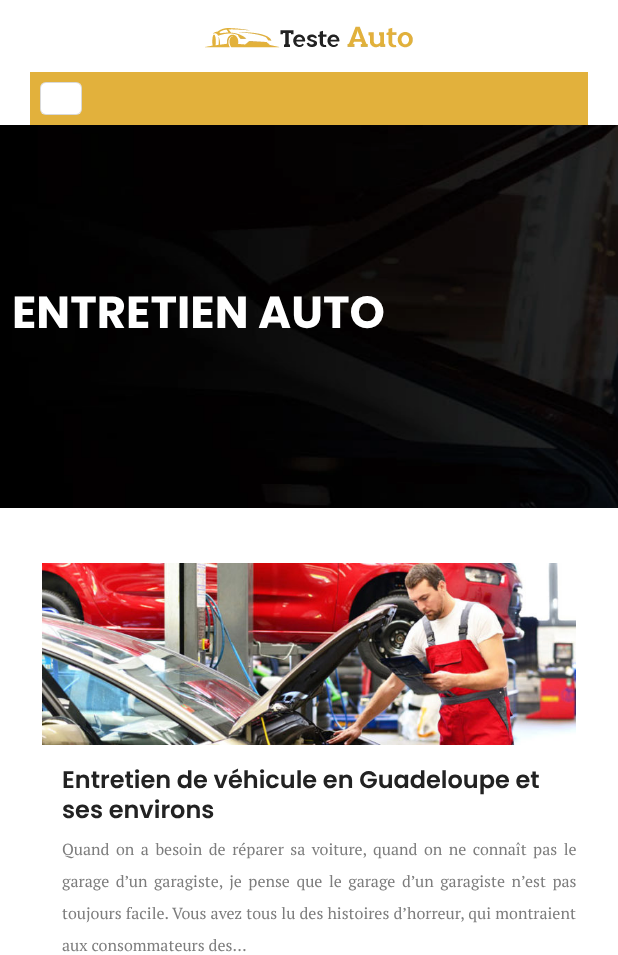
async function draw(canvas) {
  canvas.width = 618
  canvas.height = 955
  const ctx = canvas.getContext('2d')
  ctx.miterLimit = 4
  ctx.fontKerning = 'normal'
  async function loadImage(src) {
    const img = new Image()
    img.src = src
    await img.decode()
    return img
  }

  ctx.fillStyle = '#fff'
  ctx.fillRect(0, 0, 618, 955)
  ctx.drawImage(await loadImage('image0.png'), 205, 26, 208, 22)
  ctx.fillStyle = '#e2b13c'
  ctx.fillRect(30, 72, 558, 53)
  ctx.fillStyle = '#fff'
  ctx.beginPath()
  ctx.roundRect(40, 82, 42, 33, 6)
  ctx.fill()
  ctx.beginPath()
  ctx.roundRect(40.5, 82.5, 41, 32, 5.5)
  ctx.strokeStyle = '#00000026'
  ctx.stroke()
  ctx.drawImage(await loadImage('image1.png'), 0, 125, 618, 383)
  ctx.font = 'bold 45px Poppins'
  ctx.fillText('ENTRETIEN AUTO', 12, 328)
  ctx.drawImage(await loadImage('image2.png'), 42, 563, 534, 182)
  ctx.font = '600 24px Poppins'
  ctx.fillStyle = '#222'
  ctx.fillText('Entretien de véhicule en Guadeloupe et', 62, 788)
  ctx.fillText('ses environs', 62, 818)
  ctx.wordSpacing = '2.6px'
  ctx.font = '16px PT Serif'
  ctx.fillStyle = '#7d7d7d'
  ctx.fillText('Quand on a besoin de réparer sa voiture, quand on ne connaît pas le', 62, 855)
  ctx.fillText('garage d’un garagiste, je pense que le garage d’un garagiste n’est pas', 62, 887)
  ctx.wordSpacing = '0.25px'
  ctx.fillText('toujours facile. Vous avez tous lu des histoires d’horreur, qui montraient', 62, 919)
  ctx.wordSpacing = '0px'
  ctx.fillText('aux consommateurs des…', 62, 951)
}

draw(document.querySelector('canvas'))
